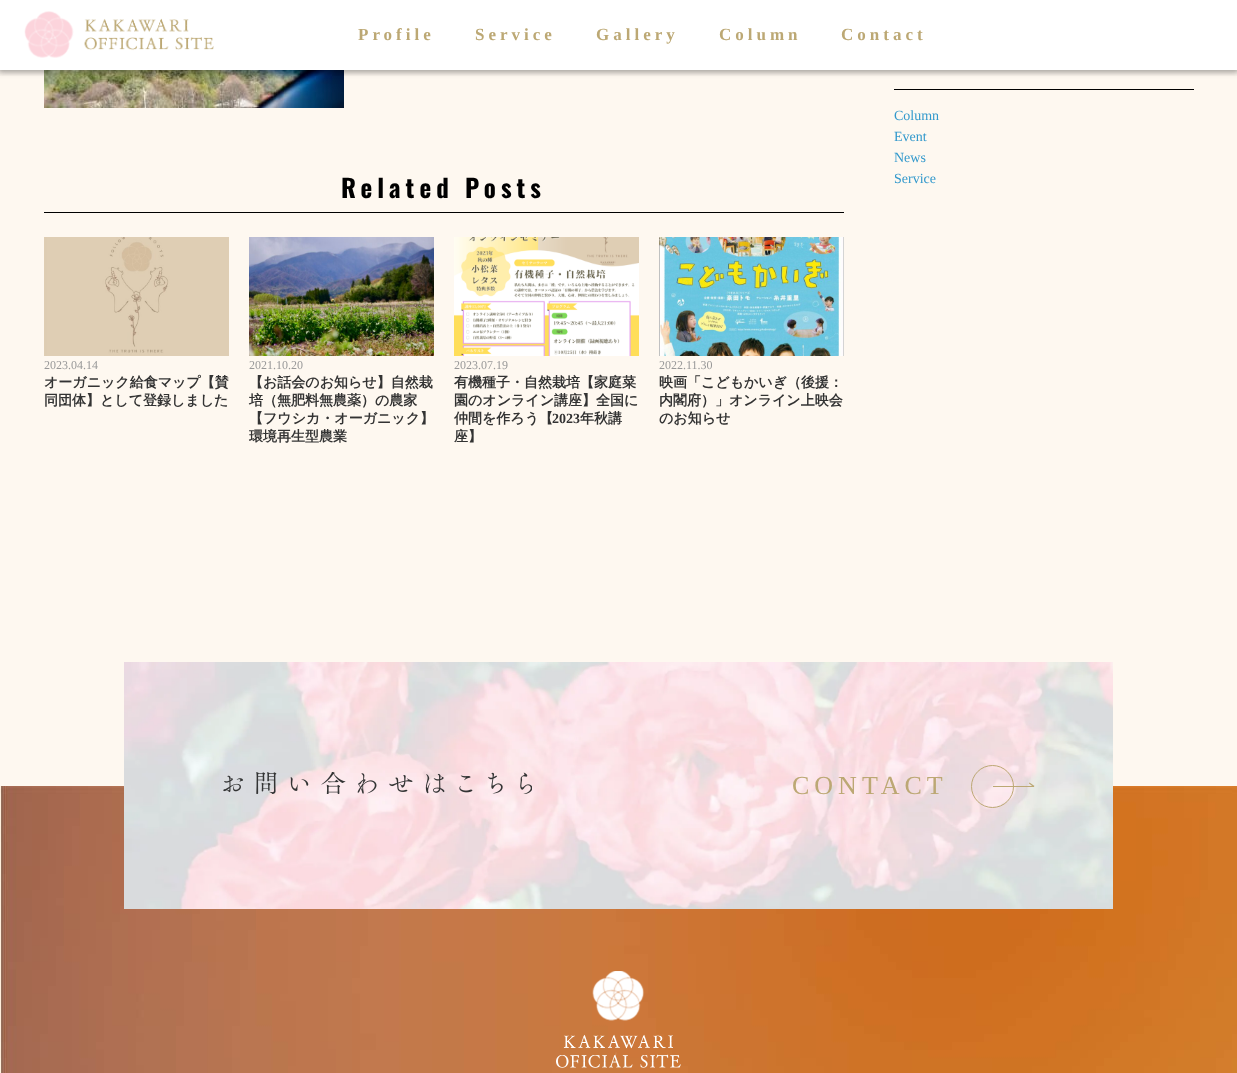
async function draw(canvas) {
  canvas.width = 1237
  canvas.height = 1073
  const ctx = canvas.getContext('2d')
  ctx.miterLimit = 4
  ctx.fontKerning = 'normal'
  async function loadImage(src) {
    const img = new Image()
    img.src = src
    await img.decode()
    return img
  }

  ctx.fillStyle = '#fef8f0'
  ctx.fillRect(0, 0, 1237, 1073)
  ctx.drawImage(await loadImage('image1.png'), 44, 70, 300, 38)
  ctx.fillStyle = '#00000036'
  ctx.filter = 'blur(3px)'
  ctx.beginPath()
  ctx.rect(-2, -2, 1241, 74)
  ctx.fill()
  ctx.filter = 'none'
  ctx.fillStyle = '#fff'
  ctx.fillRect(0, 0, 1237, 70)
  ctx.save()
  ctx.beginPath()
  ctx.rect(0, 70, 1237, 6)
  ctx.clip()
  ctx.fillStyle = '#00000036'
  ctx.filter = 'blur(3px)'
  ctx.beginPath()
  ctx.rect(-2, -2, 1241, 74)
  ctx.fill()
  ctx.filter = 'none'
  ctx.restore()
  ctx.drawImage(await loadImage('image0.png'), 24, 11, 190, 47)
  ctx.letterSpacing = '4px'
  ctx.font = 'bold 17px Liberation Serif'
  ctx.fillStyle = '#bca874'
  ctx.fillText('Profile', 358, 40)
  ctx.fillText('Service', 475, 40)
  ctx.fillText('Gallery', 596, 40)
  ctx.fillText('Column', 719, 40)
  ctx.fillText('Contact', 841, 40)
  ctx.fillStyle = '#000'
  ctx.fillRect(894, 89, 300, 1)
  ctx.letterSpacing = '0px'
  ctx.font = '14px Liberation Serif'
  ctx.fillStyle = '#39c'
  ctx.fillText('Column', 894, 120)
  ctx.fillText('Event', 894, 141)
  ctx.fillText('News', 894, 162)
  ctx.fillText('Service', 894, 183)
  ctx.fillStyle = '#000'
  ctx.fillRect(44, 212, 800, 1)
  ctx.letterSpacing = '5px'
  ctx.font = 'bold 25px Oswald'
  ctx.fillText('Related Posts', 341, 198)
  ctx.drawImage(await loadImage('image2.png'), 44, 237, 185, 119)
  ctx.letterSpacing = '0px'
  ctx.font = '12px Liberation Serif'
  ctx.fillStyle = '#999'
  ctx.fillText('2023.04.14', 44, 369)
  ctx.font = 'bold 14px WenQuanYi Zen Hei'
  ctx.fillStyle = '#333'
  ctx.fillText('オーガニック給食マップ【賛', 44, 387)
  ctx.fillText('同団体】として登録しました', 44, 405)
  ctx.drawImage(await loadImage('image3.png'), 249, 237, 185, 119)
  ctx.font = '12px Liberation Serif'
  ctx.fillStyle = '#999'
  ctx.fillText('2021.10.20', 249, 369)
  ctx.font = 'bold 14px WenQuanYi Zen Hei'
  ctx.fillStyle = '#333'
  ctx.fillText('【お話会のお知らせ】自然栽', 249, 387)
  ctx.fillText('培（無肥料無農薬）の農家', 249, 405)
  ctx.fillText('【フウシカ・オーガニック】', 249, 423)
  ctx.fillText('環境再生型農業', 249, 441)
  ctx.drawImage(await loadImage('image4.png'), 454, 237, 185, 119)
  ctx.font = '12px Liberation Serif'
  ctx.fillStyle = '#999'
  ctx.fillText('2023.07.19', 454, 369)
  ctx.font = 'bold 14px WenQuanYi Zen Hei'
  ctx.fillStyle = '#333'
  ctx.fillText('有機種子・自然栽培【家庭菜', 454, 387)
  ctx.fillText('園のオンライン講座】全国に', 454, 405)
  ctx.fillText('仲間を作ろう【', 454, 423)
  ctx.font = 'bold 14px Liberation Serif'
  ctx.fillText('2023', 552, 423)
  ctx.font = 'bold 14px WenQuanYi Zen Hei'
  ctx.fillText('年秋講', 580, 423)
  ctx.fillText('座】', 454, 441)
  ctx.drawImage(await loadImage('image5.png'), 659, 237, 185, 119)
  ctx.font = '12px Liberation Serif'
  ctx.fillStyle = '#999'
  ctx.fillText('2022.11.30', 659, 369)
  ctx.font = 'bold 14px WenQuanYi Zen Hei'
  ctx.fillStyle = '#333'
  ctx.fillText('映画「こどもかいぎ（後援：', 659, 387)
  ctx.fillText('内閣府）」オンライン上映会', 659, 405)
  ctx.fillText('のお知らせ', 659, 423)
  ctx.drawImage(await loadImage('image6.png'), 0, 786, 1237, 287)
  ctx.drawImage(await loadImage('image7.png'), 124, 662, 989, 247)
  ctx.drawImage(await loadImage('image8.png'), 223, 772, 309, 22)
  ctx.letterSpacing = '5px'
  ctx.font = '26px Liberation Serif'
  ctx.fillStyle = '#bca874'
  ctx.fillText('CONTACT', 792, 794)
  ctx.beginPath()
  ctx.arc(992.5, 786.5, 21, 0, 2 * Math.PI)
  ctx.strokeStyle = '#bca874'
  ctx.stroke()
  ctx.fillRect(993, 786, 41, 1)
  ctx.beginPath()
  ctx.moveTo(1029.5, 782.5)
  ctx.lineTo(1034.5, 786)
  ctx.lineTo(1033.5, 787)
  ctx.lineTo(1029, 783.5)
  ctx.closePath()
  ctx.fill()
  ctx.drawImage(await loadImage('image9.png'), 556, 971, 125, 97)
}

draw(document.querySelector('canvas'))
